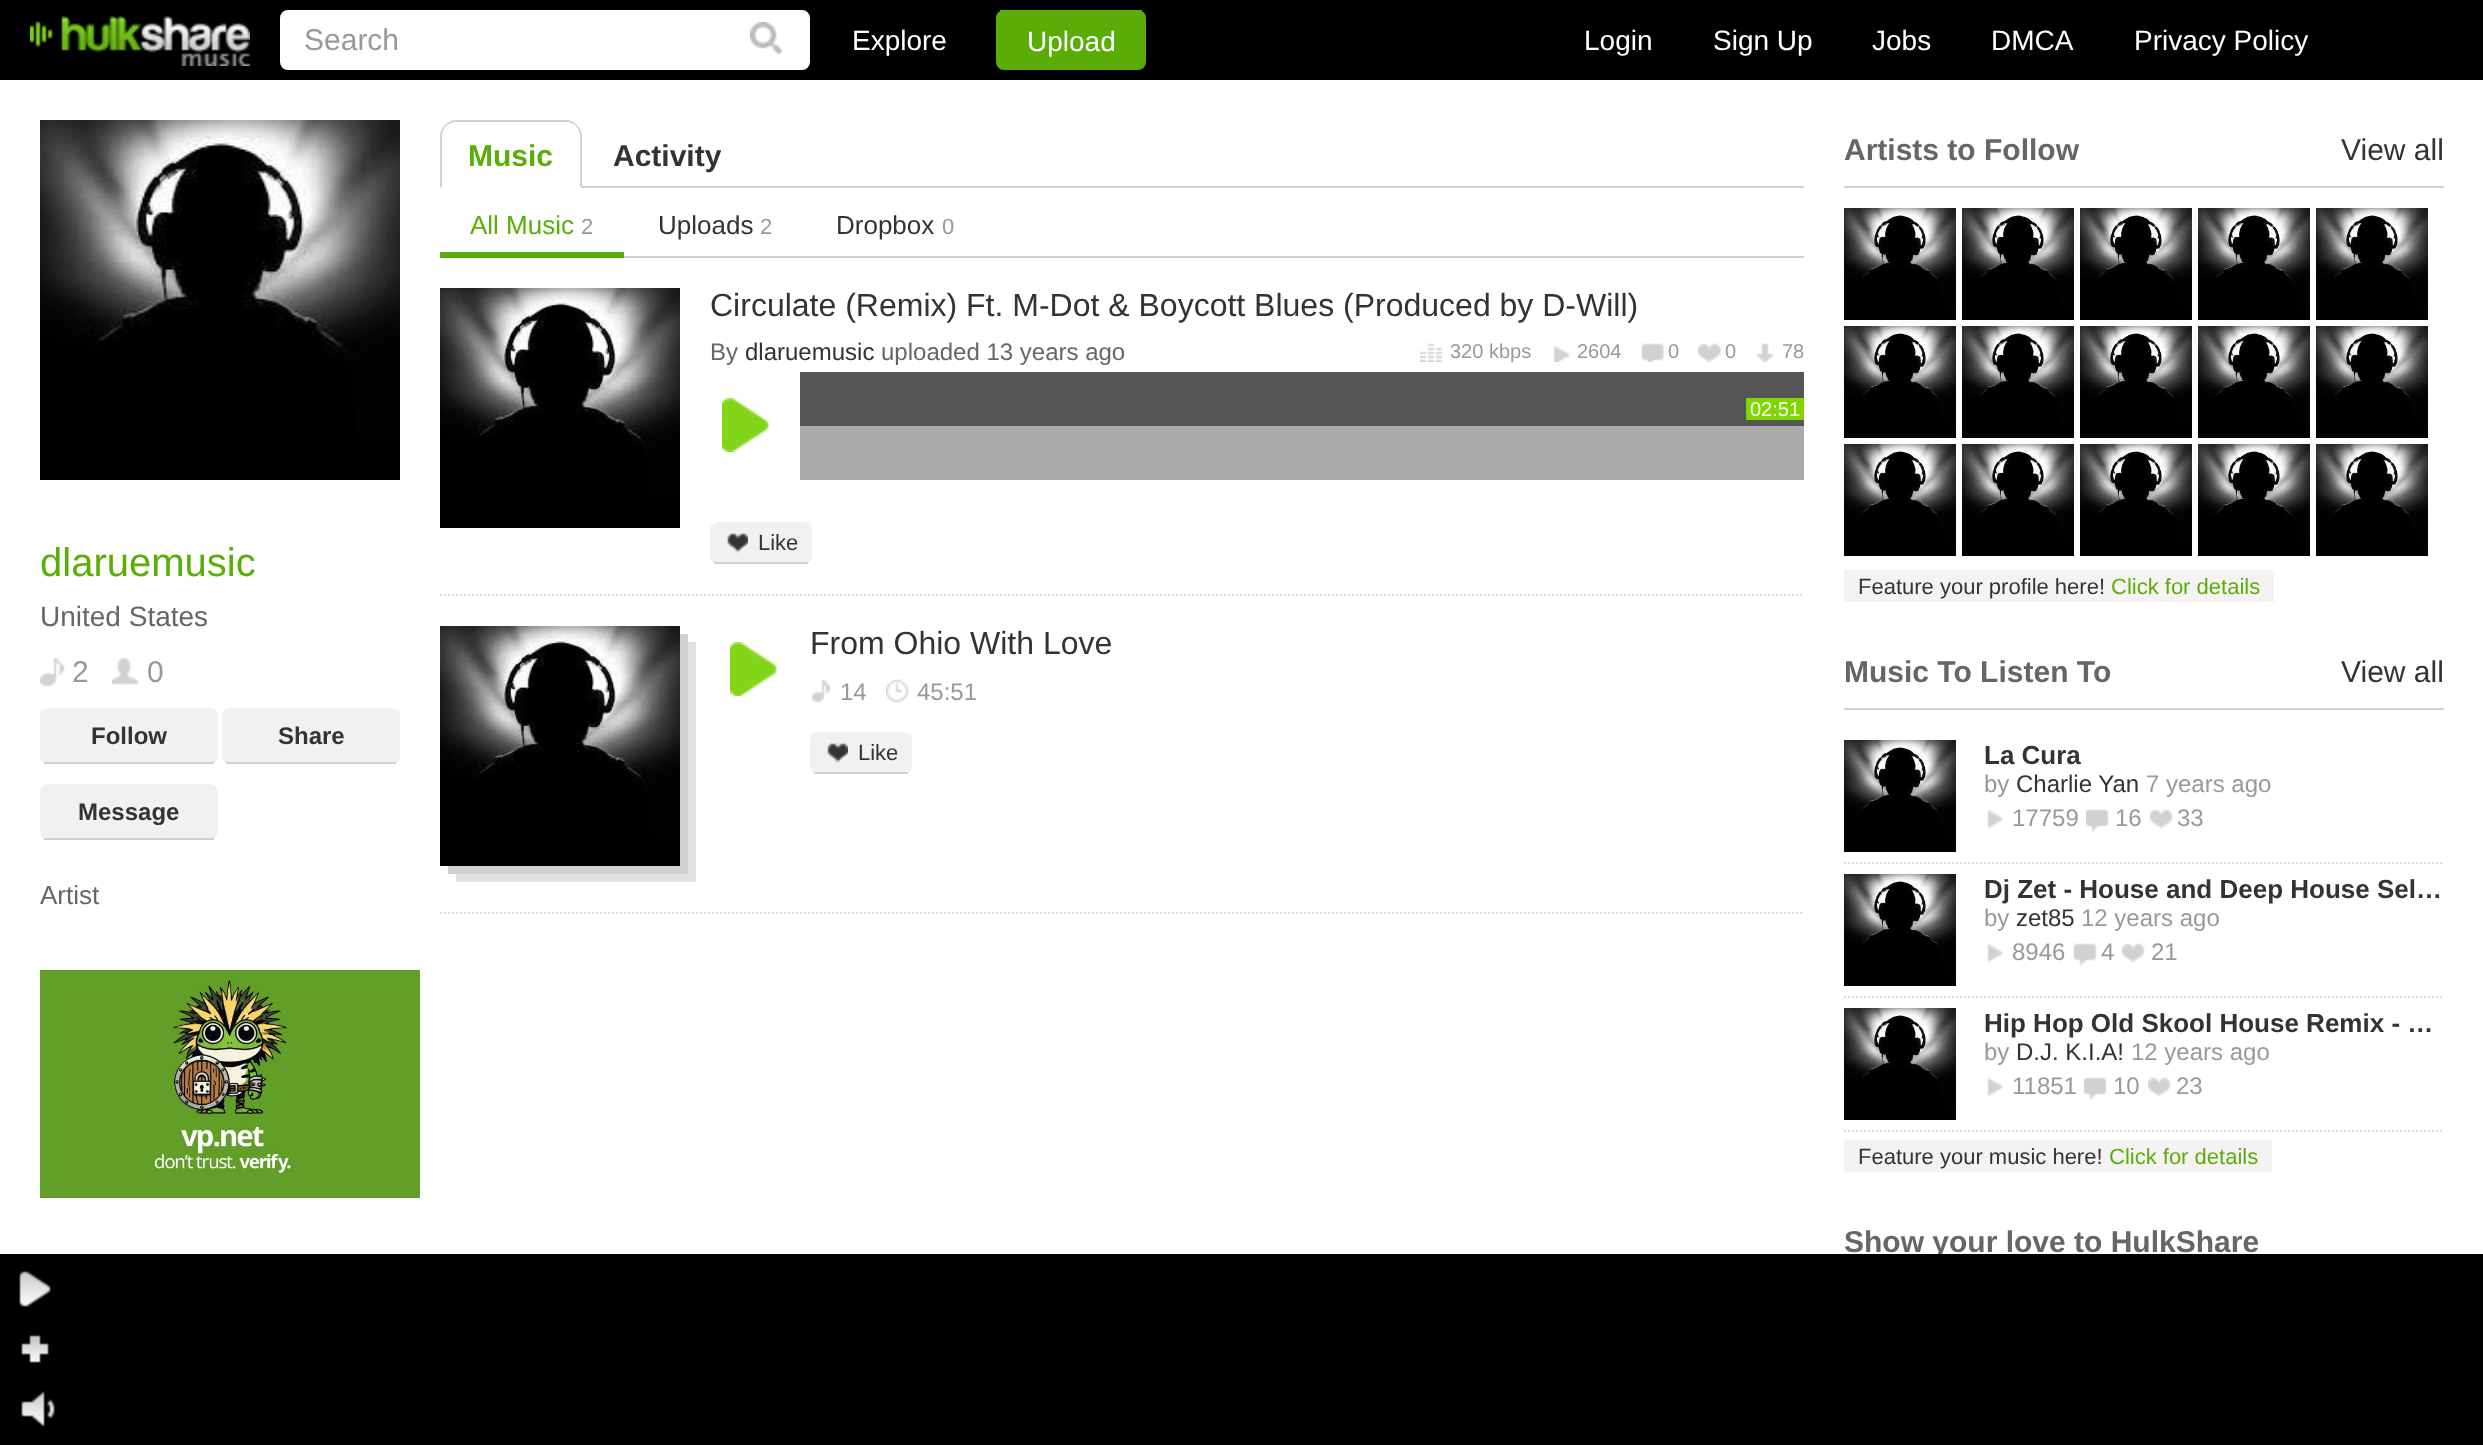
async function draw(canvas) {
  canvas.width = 2483
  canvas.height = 1445
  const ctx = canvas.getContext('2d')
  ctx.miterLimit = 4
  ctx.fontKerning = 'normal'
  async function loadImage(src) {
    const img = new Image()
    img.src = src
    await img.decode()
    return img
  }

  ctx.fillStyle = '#fff'
  ctx.fillRect(0, 0, 2483, 1445)
  ctx.fillStyle = '#000'
  ctx.fillRect(0, 0, 2483, 80)
  ctx.drawImage(await loadImage('image0.png'), 30, 16, 220, 50)
  ctx.fillStyle = '#fff'
  ctx.beginPath()
  ctx.roundRect(282, 12, 526, 56, 6)
  ctx.fill()
  ctx.strokeStyle = '#fff'
  ctx.lineWidth = 4
  ctx.stroke()
  ctx.font = '30px Liberation Sans'
  ctx.fillStyle = '#999'
  ctx.fillText('Search', 304, 50)
  ctx.drawImage(await loadImage('image1.png'), 750, 22, 32, 32)
  ctx.font = '28px Liberation Sans'
  ctx.fillStyle = '#fff'
  ctx.fillText('Explore', 852, 50)
  ctx.fillStyle = '#5aad07'
  ctx.beginPath()
  ctx.roundRect(996, 10, 150, 60, 8)
  ctx.fill()
  ctx.fillRect(1000, 10, 142, 1)
  ctx.fillStyle = '#fff'
  ctx.fillText('Upload', 1027, 51)
  ctx.fillText('Login', 1584, 50)
  ctx.fillText('Sign Up', 1713, 50)
  ctx.fillText('Jobs', 1872, 50)
  ctx.fillText('DMCA', 1991, 50)
  ctx.fillText('Privacy Policy', 2134, 50)
  ctx.drawImage(await loadImage('image2.png'), 40, 120, 360, 360)
  ctx.font = '40px Liberation Sans'
  ctx.fillStyle = '#5aae07'
  ctx.fillText('dlaruemusic', 40, 576)
  ctx.font = '28px Liberation Sans'
  ctx.fillStyle = '#666'
  ctx.fillText('United States', 40, 626)
  ctx.drawImage(await loadImage('image3.png'), 40, 657, 25, 30)
  ctx.font = '30px Liberation Sans'
  ctx.fillStyle = '#999'
  ctx.fillText('2', 72, 682)
  ctx.drawImage(await loadImage('image4.png'), 112, 657, 27, 28)
  ctx.fillText('0', 147, 682)
  ctx.fillStyle = '#f1f1f1'
  ctx.beginPath()
  ctx.roundRect(40, 708, 178, 56, 8)
  ctx.fill()
  ctx.fillStyle = '#d0d0d0'
  ctx.fillRect(44, 762, 170, 2)
  ctx.font = 'bold 24px Liberation Sans'
  ctx.fillStyle = '#333'
  ctx.fillText('Follow', 91, 744)
  ctx.fillStyle = '#f1f1f1'
  ctx.beginPath()
  ctx.roundRect(222, 708, 178, 56, 8)
  ctx.fill()
  ctx.fillStyle = '#d0d0d0'
  ctx.fillRect(226, 762, 170, 2)
  ctx.fillStyle = '#333'
  ctx.fillText('Share', 278, 744)
  ctx.fillStyle = '#f1f1f1'
  ctx.beginPath()
  ctx.roundRect(40, 784, 178, 56, 8)
  ctx.fill()
  ctx.fillStyle = '#d0d0d0'
  ctx.fillRect(44, 838, 170, 2)
  ctx.fillStyle = '#333'
  ctx.fillText('Message', 78, 820)
  ctx.font = '26px Liberation Sans'
  ctx.fillStyle = '#666'
  ctx.fillText('Artist', 40, 904)
  ctx.drawImage(await loadImage('image5.png'), 40, 970, 380, 228)
  ctx.fillStyle = '#d0d0d0'
  ctx.fillRect(440, 186, 1364, 2)
  ctx.beginPath()
  ctx.moveTo(456, 120)
  ctx.bezierCurveTo(452, 120, 448, 122, 445, 125)
  ctx.lineTo(446, 126)
  ctx.bezierCurveTo(448, 124, 452, 122, 456, 122)
  ctx.lineTo(566, 122)
  ctx.bezierCurveTo(570, 122, 574, 124, 576, 126)
  ctx.lineTo(577, 125)
  ctx.bezierCurveTo(574, 122, 570, 120, 566, 120)
  ctx.closePath()
  ctx.fill()
  ctx.beginPath()
  ctx.moveTo(582, 188)
  ctx.lineTo(582, 136)
  ctx.bezierCurveTo(582, 132, 580, 128, 577, 125)
  ctx.lineTo(576, 126)
  ctx.bezierCurveTo(578, 128, 580, 132, 580, 136)
  ctx.lineTo(580, 186)
  ctx.closePath()
  ctx.fill()
  ctx.fillStyle = '#fff'
  ctx.beginPath()
  ctx.moveTo(582, 188)
  ctx.lineTo(580, 186)
  ctx.lineTo(442, 186)
  ctx.lineTo(440, 188)
  ctx.closePath()
  ctx.fill()
  ctx.fillStyle = '#d0d0d0'
  ctx.beginPath()
  ctx.moveTo(440, 188)
  ctx.lineTo(442, 186)
  ctx.lineTo(442, 136)
  ctx.bezierCurveTo(442, 132, 444, 128, 446, 126)
  ctx.lineTo(445, 125)
  ctx.bezierCurveTo(442, 128, 440, 132, 440, 136)
  ctx.closePath()
  ctx.fill()
  ctx.font = 'bold 30px Liberation Sans'
  ctx.fillStyle = '#5aae07'
  ctx.fillText('Music', 468, 166)
  ctx.fillStyle = '#333'
  ctx.fillText('Activity', 613, 166)
  ctx.fillStyle = '#d0d0d0'
  ctx.fillRect(624, 256, 1180, 2)
  ctx.fillStyle = '#5aae07'
  ctx.fillRect(440, 252, 184, 6)
  ctx.font = '26px Liberation Sans'
  ctx.fillText('All Music', 470, 234)
  ctx.font = '22px Liberation Sans'
  ctx.fillStyle = '#999'
  ctx.fillText('2', 581, 234)
  ctx.font = '26px Liberation Sans'
  ctx.fillStyle = '#333'
  ctx.fillText('Uploads', 658, 234)
  ctx.font = '22px Liberation Sans'
  ctx.fillStyle = '#999'
  ctx.fillText('2', 760, 234)
  ctx.font = '26px Liberation Sans'
  ctx.fillStyle = '#333'
  ctx.fillText('Dropbox', 836, 234)
  ctx.font = '22px Liberation Sans'
  ctx.fillStyle = '#999'
  ctx.fillText('0', 942, 234)
  ctx.beginPath()
  ctx.moveTo(440, 595)
  ctx.lineTo(1804, 595)
  ctx.strokeStyle = '#dcdcdc'
  ctx.lineWidth = 2
  ctx.setLineDash([2, 2])
  ctx.stroke()
  ctx.drawImage(await loadImage('image6.png'), 440, 288, 240, 240)
  ctx.font = '32px Liberation Sans'
  ctx.fillStyle = '#333'
  ctx.fillText('Circulate (Remix) Ft. M-Dot & Boycott Blues (Produced by D-Will)', 710, 316)
  ctx.font = '24px Liberation Sans'
  ctx.fillStyle = '#666'
  ctx.fillText('By', 710, 360)
  ctx.fillStyle = '#333'
  ctx.fillText('dlaruemusic', 745, 360)
  ctx.fillStyle = '#666'
  ctx.fillText('uploaded 13 years ago', 881, 360)
  ctx.drawImage(await loadImage('image7.png'), 1420, 343, 23, 19)
  ctx.font = '20px Liberation Sans'
  ctx.fillStyle = '#999'
  ctx.fillText('320 kbps', 1450, 358)
  ctx.drawImage(await loadImage('image8.png'), 1553, 345, 17, 17)
  ctx.fillText('2604', 1577, 358)
  ctx.drawImage(await loadImage('image9.png'), 1642, 343, 22, 19)
  ctx.fillText('0', 1668, 358)
  ctx.drawImage(await loadImage('image10.png'), 1698, 343, 23, 19)
  ctx.fillText('0', 1725, 358)
  ctx.drawImage(await loadImage('image11.png'), 1756, 343, 19, 19)
  ctx.fillText('78', 1782, 358)
  ctx.drawImage(await loadImage('image12.png'), 722, 398, 48, 54)
  ctx.fillStyle = '#555'
  ctx.fillRect(800, 372, 1004, 54)
  ctx.fillStyle = '#80d700'
  ctx.fillRect(1746, 398, 58, 22)
  ctx.fillStyle = '#fff'
  ctx.fillText('02:51', 1750, 416)
  ctx.fillStyle = '#aaa'
  ctx.fillRect(800, 426, 1004, 54)
  ctx.fillStyle = '#f1f1f1'
  ctx.beginPath()
  ctx.roundRect(710, 522, 102, 42, 8)
  ctx.fill()
  ctx.fillStyle = '#d0d0d0'
  ctx.fillRect(714, 562, 94, 2)
  ctx.drawImage(await loadImage('image13.png'), 727, 533, 21, 20)
  ctx.font = '22px Liberation Sans'
  ctx.fillStyle = '#333'
  ctx.fillText('Like', 758, 550)
  ctx.beginPath()
  ctx.moveTo(440, 913)
  ctx.lineTo(1804, 913)
  ctx.stroke()
  ctx.fillStyle = '#e2e2e2'
  ctx.fillRect(456, 642, 240, 240)
  ctx.fillStyle = '#d0d0d0'
  ctx.fillRect(448, 634, 240, 240)
  ctx.drawImage(await loadImage('image6.png'), 440, 626, 240, 240)
  ctx.drawImage(await loadImage('image12.png'), 730, 642, 48, 54)
  ctx.font = '32px Liberation Sans'
  ctx.fillStyle = '#333'
  ctx.fillText('From Ohio With Love', 810, 654)
  ctx.drawImage(await loadImage('image14.png'), 811, 679, 20, 24)
  ctx.font = '24px Liberation Sans'
  ctx.fillStyle = '#999'
  ctx.fillText('14', 840, 700)
  ctx.drawImage(await loadImage('image15.png'), 886, 679, 23, 24)
  ctx.fillText('45:51', 917, 700)
  ctx.fillStyle = '#f1f1f1'
  ctx.beginPath()
  ctx.roundRect(810, 732, 102, 42, 8)
  ctx.fill()
  ctx.fillStyle = '#d0d0d0'
  ctx.fillRect(814, 772, 94, 2)
  ctx.drawImage(await loadImage('image13.png'), 827, 743, 21, 20)
  ctx.font = '22px Liberation Sans'
  ctx.fillStyle = '#333'
  ctx.fillText('Like', 858, 760)
  ctx.fillStyle = '#d0d0d0'
  ctx.fillRect(1844, 186, 600, 2)
  ctx.font = 'bold 30px Liberation Sans'
  ctx.fillStyle = '#666'
  ctx.fillText('Artists to Follow', 1844, 160)
  ctx.font = '30px Liberation Sans'
  ctx.fillStyle = '#333'
  ctx.fillText('View all', 2341, 160)
  ctx.drawImage(await loadImage('image16.png'), 1844, 208, 112, 112)
  ctx.drawImage(await loadImage('image16.png'), 1962, 208, 112, 112)
  ctx.drawImage(await loadImage('image16.png'), 2080, 208, 112, 112)
  ctx.drawImage(await loadImage('image16.png'), 2198, 208, 112, 112)
  ctx.drawImage(await loadImage('image16.png'), 2316, 208, 112, 112)
  ctx.drawImage(await loadImage('image16.png'), 1844, 326, 112, 112)
  ctx.drawImage(await loadImage('image16.png'), 1962, 326, 112, 112)
  ctx.drawImage(await loadImage('image16.png'), 2080, 326, 112, 112)
  ctx.drawImage(await loadImage('image16.png'), 2198, 326, 112, 112)
  ctx.drawImage(await loadImage('image16.png'), 2316, 326, 112, 112)
  ctx.drawImage(await loadImage('image16.png'), 1844, 444, 112, 112)
  ctx.drawImage(await loadImage('image16.png'), 1962, 444, 112, 112)
  ctx.drawImage(await loadImage('image16.png'), 2080, 444, 112, 112)
  ctx.drawImage(await loadImage('image16.png'), 2198, 444, 112, 112)
  ctx.drawImage(await loadImage('image16.png'), 2316, 444, 112, 112)
  ctx.fillStyle = '#f4f2f2'
  ctx.fillRect(1844, 570, 430, 32)
  ctx.font = '22px Liberation Sans'
  ctx.fillStyle = '#333'
  ctx.fillText('Feature your profile here!', 1858, 594)
  ctx.fillStyle = '#5aae07'
  ctx.fillText('Click for details', 2111, 594)
  ctx.fillStyle = '#d0d0d0'
  ctx.fillRect(1844, 708, 600, 2)
  ctx.font = 'bold 30px Liberation Sans'
  ctx.fillStyle = '#666'
  ctx.fillText('Music To Listen To', 1844, 682)
  ctx.font = '30px Liberation Sans'
  ctx.fillStyle = '#333'
  ctx.fillText('View all', 2341, 682)
  ctx.beginPath()
  ctx.moveTo(1844, 863)
  ctx.lineTo(2444, 863)
  ctx.stroke()
  ctx.drawImage(await loadImage('image16.png'), 1844, 740, 112, 112)
  ctx.font = 'bold 26px Liberation Sans'
  ctx.fillText('La Cura', 1984, 764)
  ctx.font = '24px Liberation Sans'
  ctx.fillStyle = '#999'
  ctx.fillText('by', 1984, 792)
  ctx.fillStyle = '#333'
  ctx.fillText('Charlie Yan', 2016, 792)
  ctx.fillStyle = '#999'
  ctx.fillText('7 years ago', 2146, 792)
  ctx.drawImage(await loadImage('image17.png'), 1987, 809, 16, 20)
  ctx.fillText('17759', 2012, 826)
  ctx.drawImage(await loadImage('image18.png'), 2086, 809, 23, 24)
  ctx.fillText('16', 2115, 826)
  ctx.drawImage(await loadImage('image19.png'), 2150, 809, 23, 20)
  ctx.fillText('33', 2177, 826)
  ctx.beginPath()
  ctx.moveTo(1844, 997)
  ctx.lineTo(2444, 997)
  ctx.stroke()
  ctx.drawImage(await loadImage('image16.png'), 1844, 874, 112, 112)
  ctx.font = 'bold 26px Liberation Sans'
  ctx.fillStyle = '#333'
  ctx.fillText('Dj Zet - House and Deep House Sel…', 1984, 898)
  ctx.font = '24px Liberation Sans'
  ctx.fillStyle = '#999'
  ctx.fillText('by', 1984, 926)
  ctx.fillStyle = '#333'
  ctx.fillText('zet85', 2016, 926)
  ctx.fillStyle = '#999'
  ctx.fillText('12 years ago', 2081, 926)
  ctx.drawImage(await loadImage('image17.png'), 1987, 943, 16, 20)
  ctx.fillText('8946', 2012, 960)
  ctx.drawImage(await loadImage('image18.png'), 2074, 943, 23, 24)
  ctx.fillText('4', 2101, 960)
  ctx.drawImage(await loadImage('image19.png'), 2122, 943, 23, 20)
  ctx.fillText('21', 2151, 960)
  ctx.beginPath()
  ctx.moveTo(1844, 1131)
  ctx.lineTo(2444, 1131)
  ctx.stroke()
  ctx.drawImage(await loadImage('image16.png'), 1844, 1008, 112, 112)
  ctx.font = 'bold 26px Liberation Sans'
  ctx.fillStyle = '#333'
  ctx.fillText('Hip Hop Old Skool House Remix - …', 1984, 1032)
  ctx.font = '24px Liberation Sans'
  ctx.fillStyle = '#999'
  ctx.fillText('by', 1984, 1060)
  ctx.fillStyle = '#333'
  ctx.fillText('D.J. K.I.A!', 2016, 1060)
  ctx.fillStyle = '#999'
  ctx.fillText('12 years ago', 2131, 1060)
  ctx.drawImage(await loadImage('image17.png'), 1987, 1077, 16, 20)
  ctx.fillText('11851', 2012, 1094)
  ctx.drawImage(await loadImage('image18.png'), 2084, 1077, 23, 24)
  ctx.fillText('10', 2113, 1094)
  ctx.drawImage(await loadImage('image19.png'), 2148, 1077, 23, 20)
  ctx.fillText('23', 2176, 1094)
  ctx.fillStyle = '#f4f2f2'
  ctx.fillRect(1844, 1140, 428, 32)
  ctx.font = '22px Liberation Sans'
  ctx.fillStyle = '#333'
  ctx.fillText('Feature your music here!', 1858, 1164)
  ctx.fillStyle = '#5aae07'
  ctx.fillText('Click for details', 2109, 1164)
  ctx.font = 'bold 30px Liberation Sans'
  ctx.fillStyle = '#666'
  ctx.fillText('Show your love to HulkShare', 1844, 1252)
  ctx.fillStyle = '#000'
  ctx.fillRect(0, 1254, 2483, 191)
  ctx.drawImage(await loadImage('image20.png'), 19, 1271, 32, 36)
  ctx.drawImage(await loadImage('image21.png'), 21, 1335, 28, 28)
  ctx.drawImage(await loadImage('image22.png'), 21, 1391, 34, 36)
}

draw(document.querySelector('canvas'))
